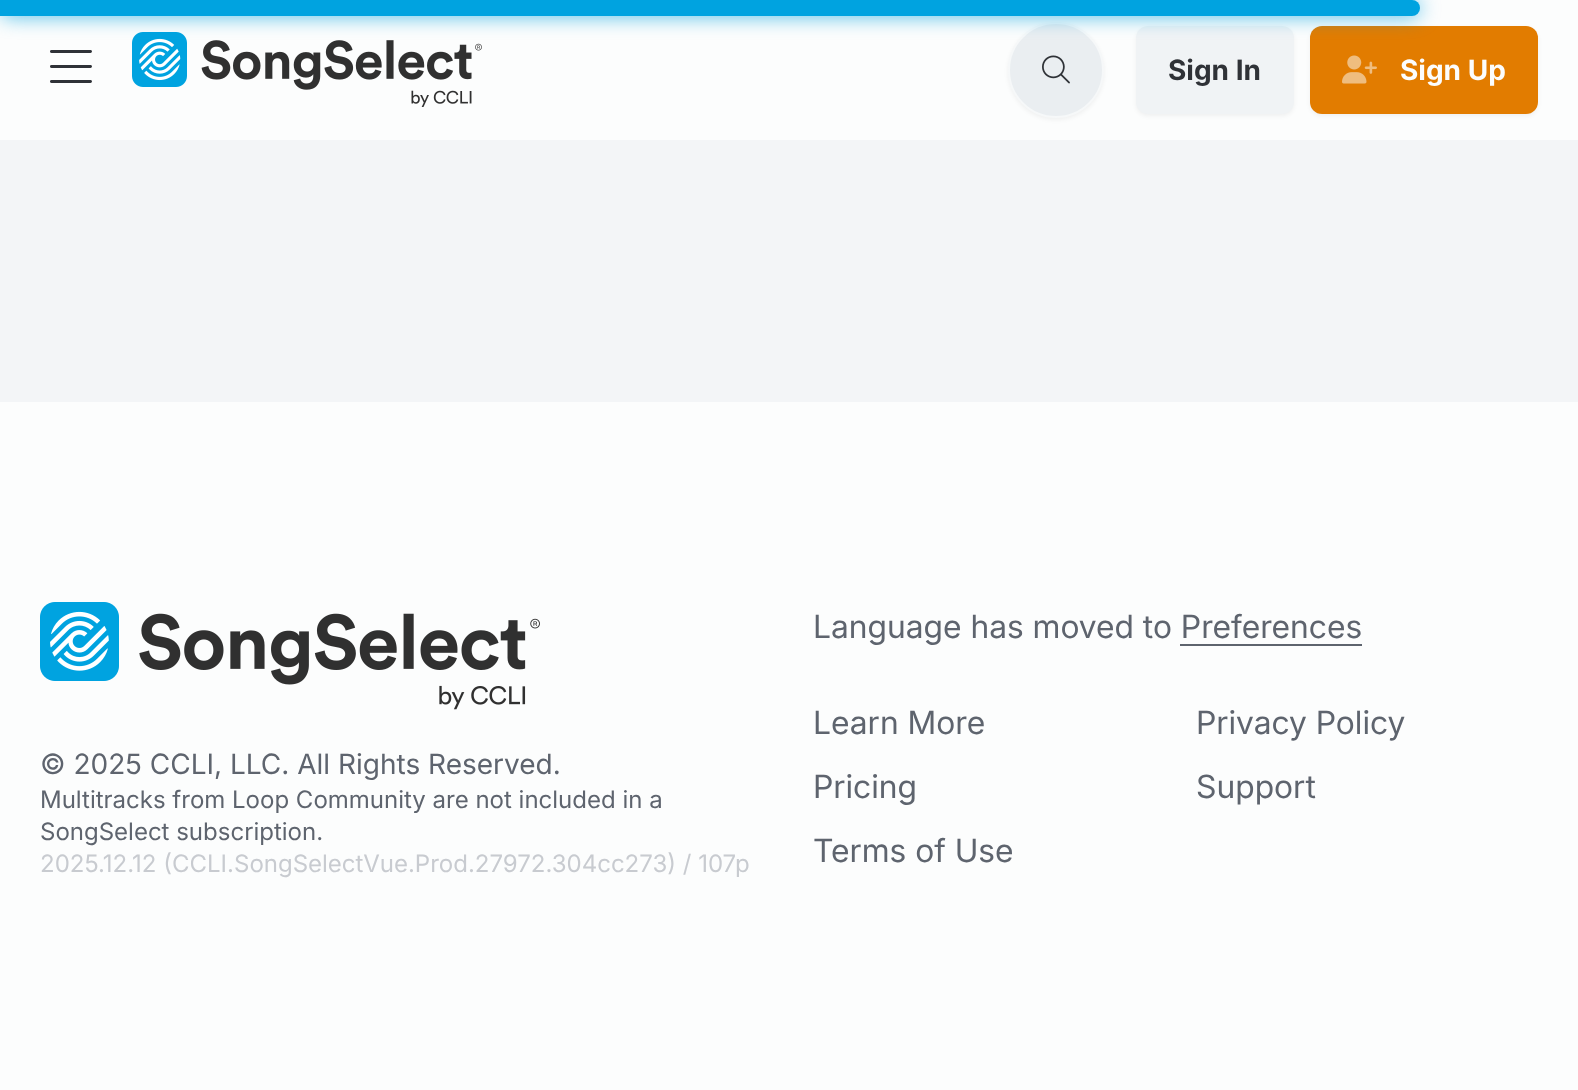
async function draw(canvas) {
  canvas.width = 1578
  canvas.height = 1090
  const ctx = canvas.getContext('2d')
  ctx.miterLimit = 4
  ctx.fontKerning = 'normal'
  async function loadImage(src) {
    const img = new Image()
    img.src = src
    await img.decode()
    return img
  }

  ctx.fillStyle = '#f3f5f7'
  ctx.fillRect(0, 0, 1578, 1090)
  ctx.fillStyle = '#fcfdfd'
  ctx.fillRect(0, 0, 1578, 140)
  ctx.drawImage(await loadImage('image1.png'), 132, 32, 350, 75)
  ctx.fillStyle = '#0000000d'
  ctx.filter = 'blur(2px)'
  ctx.beginPath()
  ctx.roundRect(1008, 24, 96, 96, 48)
  ctx.fill()
  ctx.filter = 'none'
  ctx.fillStyle = '#eaeef1'
  ctx.beginPath()
  ctx.arc(1056, 70, 47, 0, 2 * Math.PI)
  ctx.fill()
  ctx.strokeStyle = '#f6f8f9'
  ctx.lineWidth = 2
  ctx.stroke()
  ctx.fillStyle = '#0000000d'
  ctx.filter = 'blur(2px)'
  ctx.beginPath()
  ctx.roundRect(1136, 28, 158, 88, 12)
  ctx.fill()
  ctx.filter = 'none'
  ctx.fillStyle = '#f0f3f5'
  ctx.beginPath()
  ctx.roundRect(1136, 26, 158, 88, 12)
  ctx.fill()
  ctx.fillStyle = '#0000000d'
  ctx.filter = 'blur(2px)'
  ctx.beginPath()
  ctx.roundRect(1310, 28, 228, 88, 12)
  ctx.fill()
  ctx.filter = 'none'
  ctx.fillStyle = '#e27c00'
  ctx.beginPath()
  ctx.roundRect(1310, 26, 228, 88, 12)
  ctx.fill()
  ctx.fillStyle = '#00a3e0bf'
  ctx.filter = 'blur(10px)'
  ctx.beginPath()
  ctx.roundRect(0, 0, 1420, 16, 8)
  ctx.fill()
  ctx.filter = 'none'
  ctx.fillStyle = '#00a3e0'
  ctx.beginPath()
  ctx.roundRect(0, 0, 1420, 16, [0, 8, 8, 0])
  ctx.fill()
  ctx.drawImage(await loadImage('image0.png'), 50, 50, 42, 33)
  ctx.drawImage(await loadImage('image2.png'), 1042, 55, 28, 29)
  ctx.font = 'bold 28px Inter'
  ctx.fillStyle = '#2f3237'
  ctx.fillText('Sign In', 1168, 80)
  ctx.drawImage(await loadImage('image3.png'), 1342, 55, 35, 29)
  ctx.fillStyle = '#fcfdfd'
  ctx.fillText('Sign Up', 1400, 80)
  ctx.fillRect(0, 402, 1578, 688)
  ctx.drawImage(await loadImage('image4.png'), 40, 602, 500, 108)
  ctx.font = '28px Inter'
  ctx.fillStyle = '#5e646e'
  ctx.fillText('© 2025 CCLI, LLC. All Rights Reserved.', 40, 774)
  ctx.font = '24px Inter'
  ctx.fillText('Multitracks from Loop Community are not included in a', 40, 808)
  ctx.fillText('SongSelect subscription.', 40, 840)
  ctx.fillStyle = '#c8cbd0'
  ctx.fillText('2025.12.12 (CCLI.SongSelectVue.Prod.27972.304cc273) / 107p', 40, 872)
  ctx.font = '32px "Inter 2"'
  ctx.fillStyle = '#5e646e'
  ctx.fillText('Language has moved to Preferences', 813, 638)
  ctx.fillRect(1180, 644, 182, 2)
  ctx.fillText('Learn More', 813, 734)
  ctx.fillText('Pricing', 813, 798)
  ctx.fillText('Terms of Use', 813, 862)
  ctx.fillText('Privacy Policy', 1196, 734)
  ctx.fillText('Support', 1196, 798)
}

draw(document.querySelector('canvas'))
